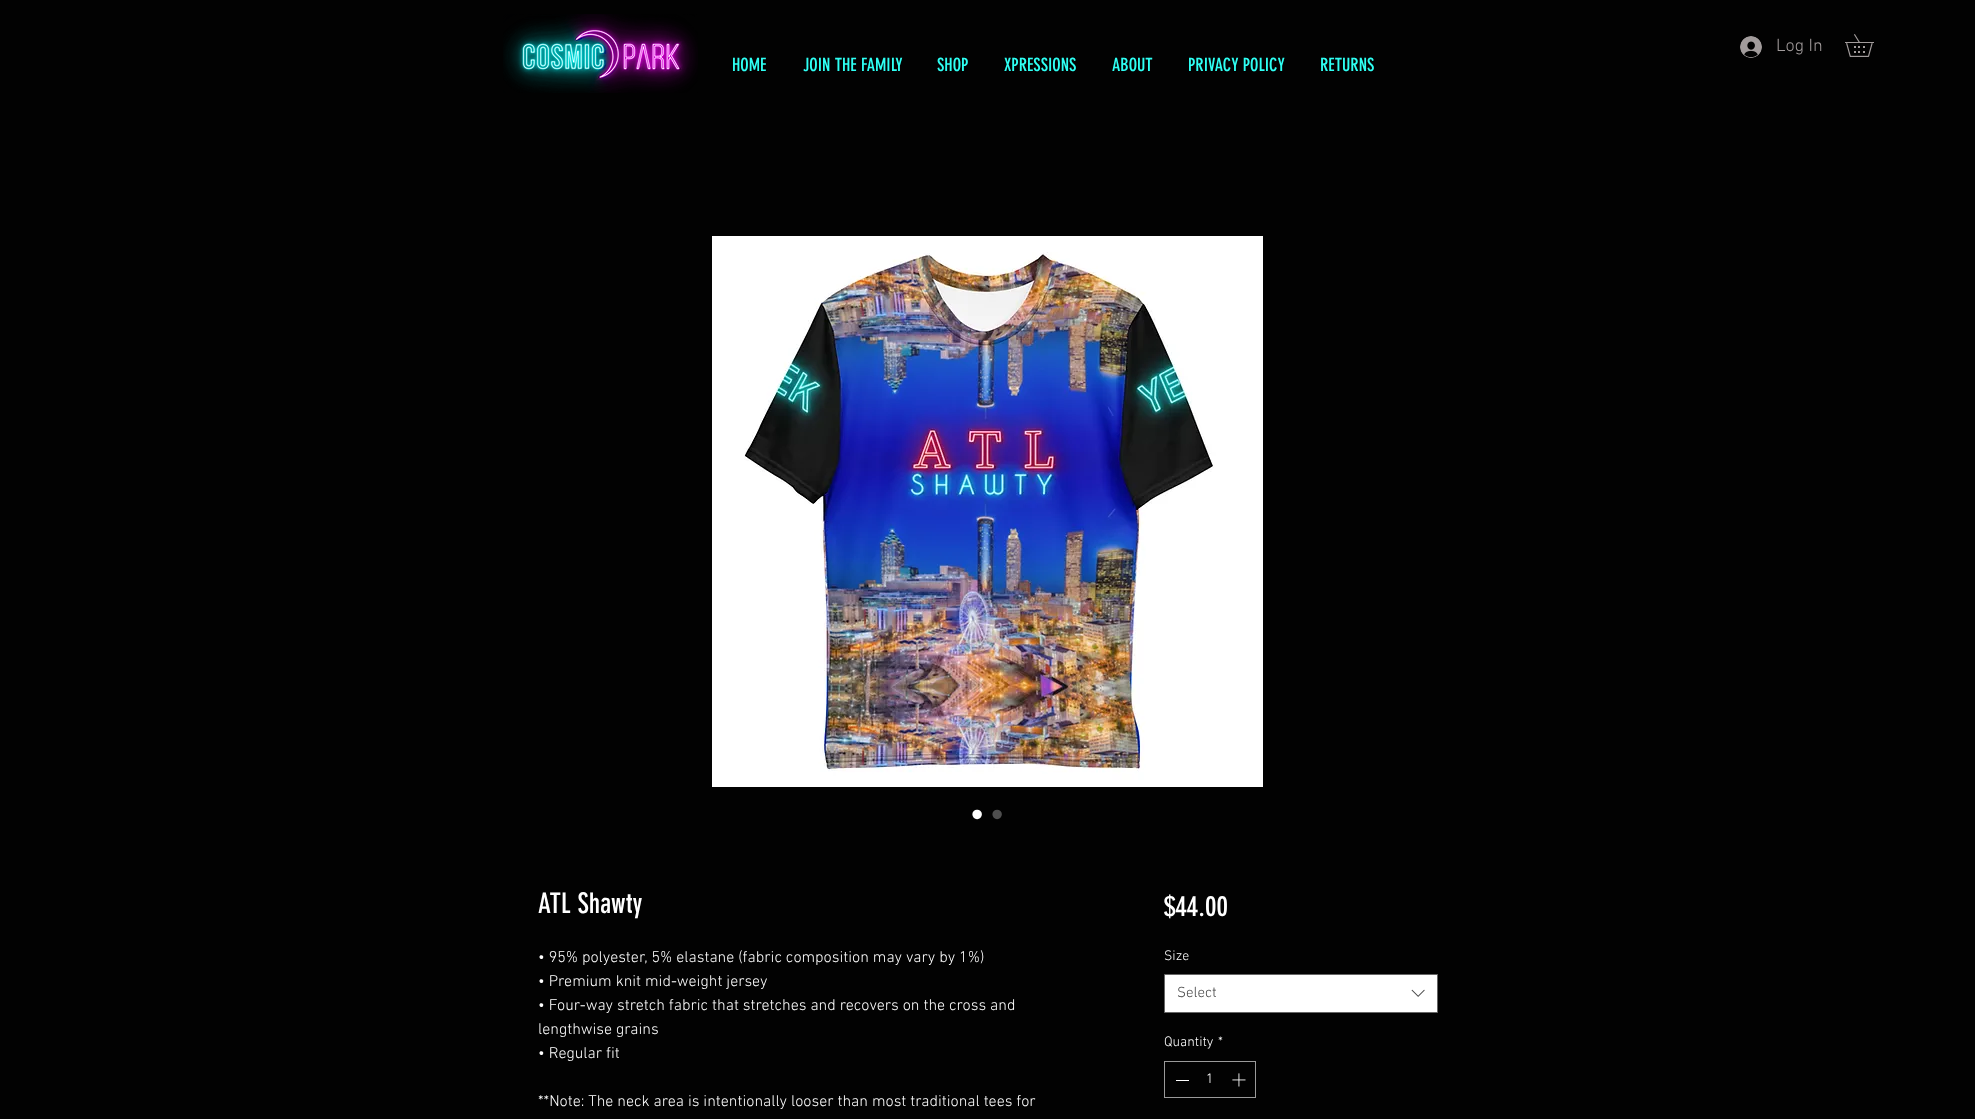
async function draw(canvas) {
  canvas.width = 1975
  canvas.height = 1119
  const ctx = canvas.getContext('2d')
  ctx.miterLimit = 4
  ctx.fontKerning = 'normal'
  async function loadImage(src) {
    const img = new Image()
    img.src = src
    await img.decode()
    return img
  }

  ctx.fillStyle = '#020202'
  ctx.fillRect(0, 0, 1975, 1119)
  ctx.drawImage(await loadImage('image0.png'), 503, 14, 195, 79)
  ctx.drawImage(await loadImage('image1.png'), 1740, 36, 22, 22)
  ctx.font = '300 18px "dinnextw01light"'
  ctx.fillStyle = '#a29c9c'
  ctx.fillText('Log In', 1776, 51)
  ctx.drawImage(await loadImage('image2.png'), 1845, 34, 29, 23)
  ctx.font = '18px "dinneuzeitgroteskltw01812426"'
  ctx.fillStyle = '#2efff3'
  ctx.fillText('HOME', 732, 71)
  ctx.fillText('JOIN THE FAMILY', 803, 71)
  ctx.fillText('SHOP', 937, 71)
  ctx.fillText('XPRESSIONS', 1004, 71)
  ctx.fillText('ABOUT', 1112, 71)
  ctx.fillText('PRIVACY POLICY', 1188, 71)
  ctx.fillText('RETURNS', 1320, 71)
  ctx.drawImage(await loadImage('image3.png'), 712, 236, 551, 551)
  ctx.font = '35px Liberation Sans'
  ctx.fillStyle = '#fff'
  ctx.fillText('•', 971, 826)
  ctx.fillStyle = '#4e4e4e'
  ctx.fillText('•', 991, 826)
  ctx.font = '28px "dinneuzeitgroteskltw01812426"'
  ctx.fillStyle = '#fff'
  ctx.fillText('ATL Shawty', 538, 913)
  ctx.font = '300 16px "dinnextw01light"'
  ctx.fillText('• 95% polyester, 5% elastane (fabric composition may vary by 1%)', 538, 962)
  ctx.fillText('• Premium knit mid-weight jersey', 538, 986)
  ctx.fillText('• Four-way stretch fabric that stretches and recovers on the cross and', 538, 1010)
  ctx.fillText('lengthwise grains', 538, 1034)
  ctx.fillText('• Regular fit', 538, 1058)
  ctx.fillText('**Note: The neck area is intentionally looser than most traditional tees for', 538, 1106)
  ctx.font = '28px "dinneuzeitgroteskltw01812426"'
  ctx.fillText('$44.00', 1164, 916)
  ctx.font = '300 14px "dinnextw01light"'
  ctx.fillText('Size', 1164, 960)
  ctx.beginPath()
  ctx.rect(1164.5, 974.5, 273, 38)
  ctx.fill()
  ctx.strokeStyle = '#666'
  ctx.stroke()
  ctx.font = '300 15px "dinnextw01light"'
  ctx.fillStyle = '#444'
  ctx.fillText('Select', 1177, 997)
  ctx.drawImage(await loadImage('image4.png'), 1411, 989, 14, 8)
  ctx.font = '300 14px "dinnextw01light"'
  ctx.fillStyle = '#fff'
  ctx.fillText('Quantity', 1164, 1046)
  ctx.fillText('*', 1218, 1046)
  ctx.strokeStyle = '#9a9a9a'
  ctx.strokeRect(1164.5, 1061.5, 91, 36)
  ctx.fillRect(1176, 1080, 13, 1)
  ctx.fillText('1', 1206, 1083)
  ctx.drawImage(await loadImage('image5.png'), 1232, 1073, 14, 14)
}

draw(document.querySelector('canvas'))
